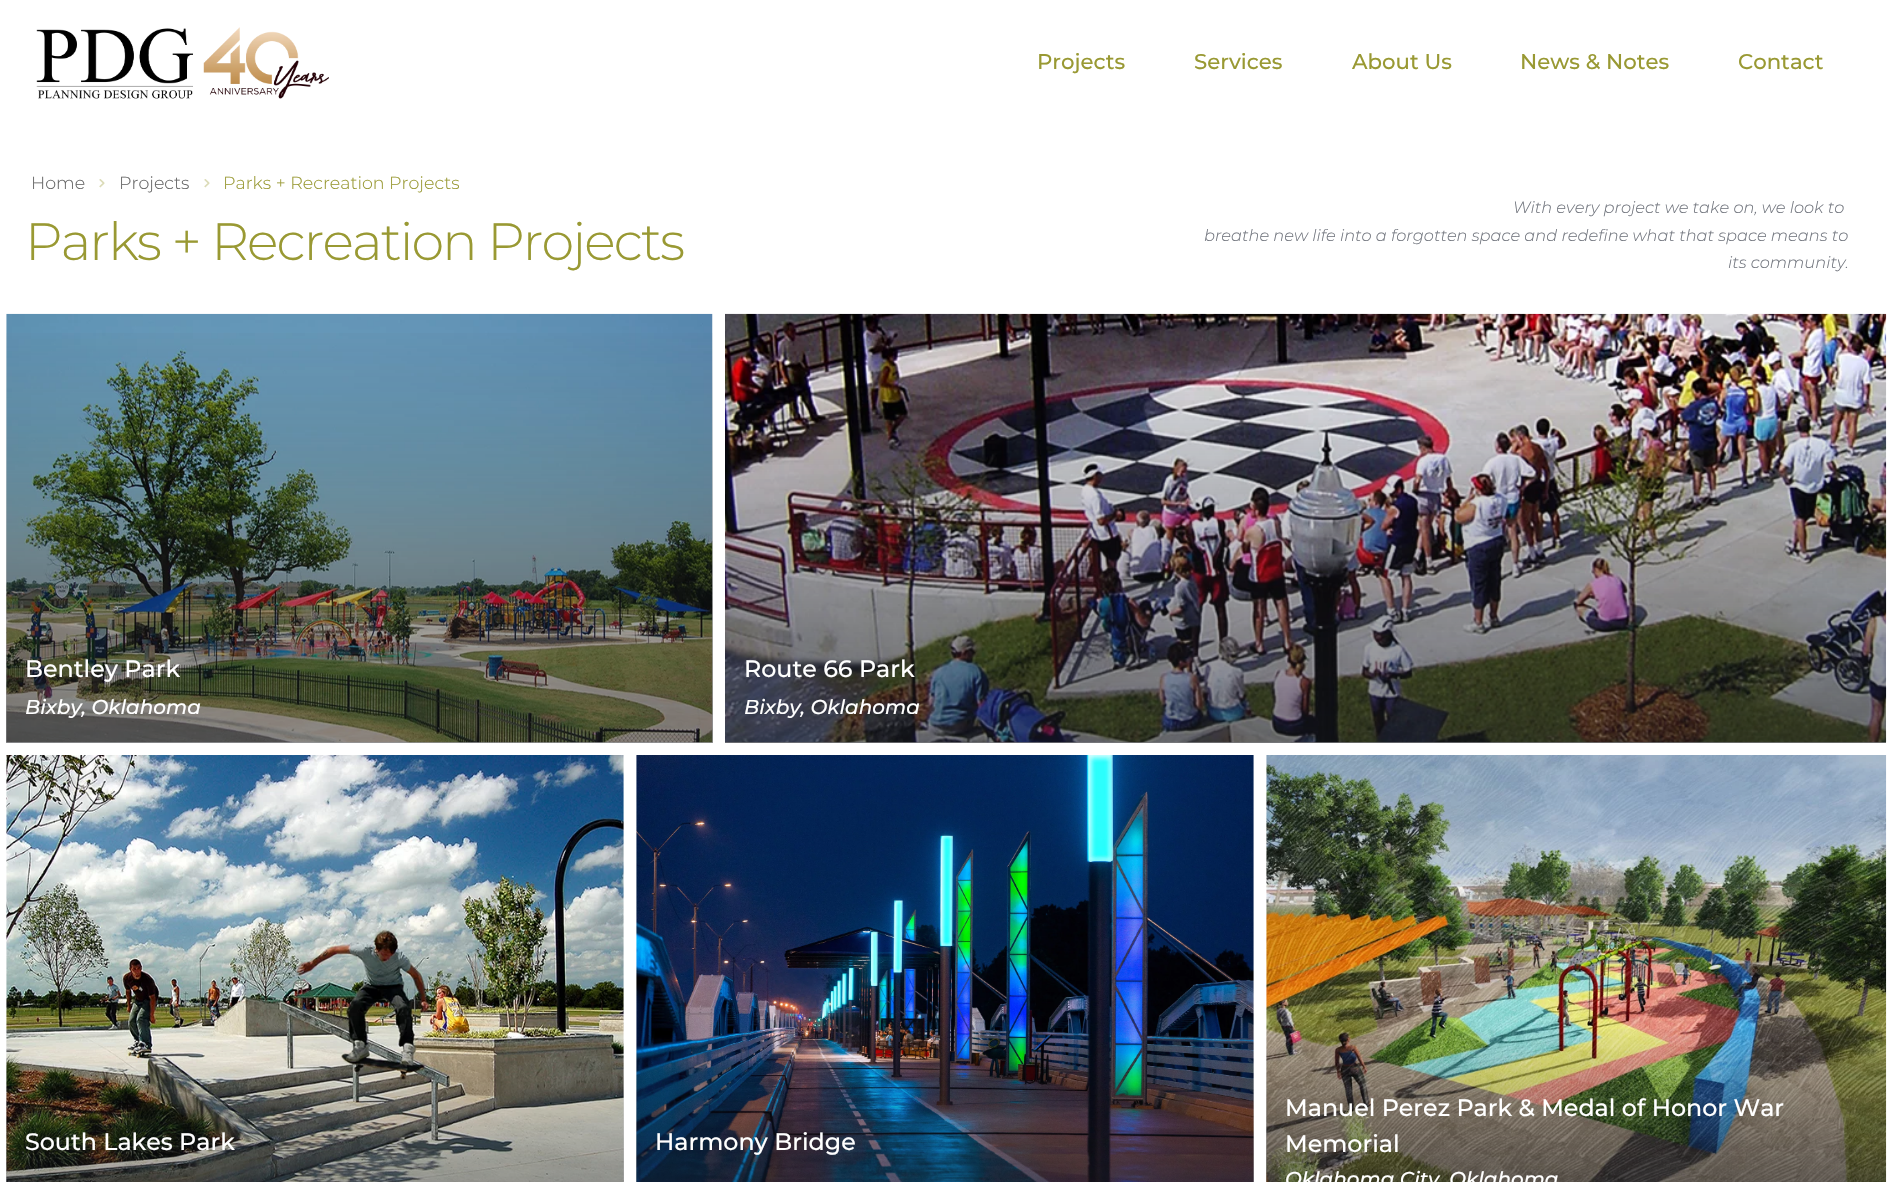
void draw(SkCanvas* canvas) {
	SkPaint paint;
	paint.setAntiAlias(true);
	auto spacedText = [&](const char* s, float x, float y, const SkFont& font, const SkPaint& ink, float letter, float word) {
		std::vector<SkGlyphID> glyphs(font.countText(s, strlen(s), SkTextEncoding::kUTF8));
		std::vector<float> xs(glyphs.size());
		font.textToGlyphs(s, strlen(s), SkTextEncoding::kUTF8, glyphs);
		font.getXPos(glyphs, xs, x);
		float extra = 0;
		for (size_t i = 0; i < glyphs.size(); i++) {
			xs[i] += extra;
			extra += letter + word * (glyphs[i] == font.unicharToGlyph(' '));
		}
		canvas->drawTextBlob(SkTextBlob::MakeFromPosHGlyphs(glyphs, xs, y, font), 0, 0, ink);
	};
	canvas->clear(0xffffffff);
	canvas->drawImageRect(SkImages::DeferredFromEncodedData(SkData::MakeFromFileName("img1.png")), SkRect::MakeXYWH(36, 27, 293, 72), SkSamplingOptions());
	SkFont f1(fontMgr->matchFamilyStyle("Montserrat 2", SkFontStyle(100, SkFontStyle::kNormal_Width, SkFontStyle::kUpright_Slant)), 21.25);
	f1.setSubpixel(true);
	paint.setColor(0xff999933);
	canvas->drawString("Projects", 1037, 69, f1, paint);
	canvas->drawString("Services", 1194, 69, f1, paint);
	canvas->drawString("About Us", 1352, 69, f1, paint);
	canvas->drawString("News & Notes", 1520, 69, f1, paint);
	canvas->drawString("Contact", 1738, 69, f1, paint);
	SkFont f2(fontMgr->matchFamilyStyle("Montserrat", SkFontStyle(100, SkFontStyle::kNormal_Width, SkFontStyle::kUpright_Slant)), 17.5);
	f2.setSubpixel(true);
	paint.setColor(0xff666666);
	canvas->drawString("Home", 31, 189, f2, paint);
	canvas->drawImageRect(SkImages::DeferredFromEncodedData(SkData::MakeFromFileName("img2.png")), SkRect::MakeXYWH(99, 179, 6, 9), SkSamplingOptions());
	canvas->drawString("Projects", 119, 189, f2, paint);
	canvas->drawImageRect(SkImages::DeferredFromEncodedData(SkData::MakeFromFileName("img2.png")), SkRect::MakeXYWH(204, 179, 6, 9), SkSamplingOptions());
	paint.setColor(0xff999933);
	canvas->drawString("Parks + Recreation Projects", 223, 189, f2, paint);
	SkFont f3(fontMgr->matchFamilyStyle("Montserrat", SkFontStyle(100, SkFontStyle::kNormal_Width, SkFontStyle::kUpright_Slant)), 52.5);
	f3.setSubpixel(true);
	spacedText("Parks + Recreation Projects", 25, 260, f3, paint, -1.9, 0);
	SkFont f4(fontMgr->matchFamilyStyle("Montserrat", SkFontStyle(100, SkFontStyle::kNormal_Width, SkFontStyle::kItalic_Slant)), 16.25);
	f4.setSubpixel(true);
	paint.setColor(0xff73777f);
	canvas->drawString("With every project we take on, we look to", 1513, 213, f4, paint);
	canvas->drawString("breathe new life into a forgotten space and redefine what that space means to", 1204, 241, f4, paint);
	canvas->drawString("its community.", 1728, 268, f4, paint);
	canvas->drawImageRect(SkImages::DeferredFromEncodedData(SkData::MakeFromFileName("img3.png")), SkRect::MakeXYWH(6, 313, 707, 430), SkSamplingOptions());
	{
		const SkColor colors[] = {0x75191b21, 0x00191b21};
		const float stops[] = {0.08, 1};
		const SkPoint ends[] = {{359, 743}, {359, 314}};
		paint.setShader(SkGradientShader::MakeLinear(ends, colors, stops, 2, SkTileMode::kClamp));
		paint.setAlpha(255);
	}
	canvas->drawRect(SkRect::MakeXYWH(6, 333, 707, 410), paint);
	SkFont f5(fontMgr->matchFamilyStyle("Montserrat 2", SkFontStyle(100, SkFontStyle::kNormal_Width, SkFontStyle::kUpright_Slant)), 23.75);
	f5.setSubpixel(true);
	paint.setShader(nullptr);
	paint.setColor(0xffffffff);
	canvas->drawString("Bentley Park", 25, 677, f5, paint);
	SkFont f6(fontMgr->matchFamilyStyle("Montserrat 2", SkFontStyle(100, SkFontStyle::kNormal_Width, SkFontStyle::kItalic_Slant)), 20);
	f6.setSubpixel(true);
	canvas->drawString("Bixby, Oklahoma", 25, 714, f6, paint);
	canvas->drawImageRect(SkImages::DeferredFromEncodedData(SkData::MakeFromFileName("img4.png")), SkRect::MakeXYWH(725, 313, 1162, 430), SkSamplingOptions());
	{
		const SkColor colors[] = {0x00191b21, 0x94191b21};
		const float stops[] = {0.12, 1};
		const SkPoint ends[] = {{1306, 314}, {1306, 743}};
		paint.setShader(SkGradientShader::MakeLinear(ends, colors, stops, 2, SkTileMode::kClamp));
		paint.setAlpha(255);
	}
	canvas->drawRect(SkRect::MakeXYWH(725, 380, 1161, 363), paint);
	paint.setShader(nullptr);
	paint.setColor(0xffffffff);
	canvas->drawString("Route 66 Park", 744, 677, f5, paint);
	canvas->drawString("Bixby, Oklahoma", 744, 714, f6, paint);
	canvas->drawImageRect(SkImages::DeferredFromEncodedData(SkData::MakeFromFileName("img5.png")), SkRect::MakeXYWH(6, 755, 618, 427), SkSamplingOptions());
	{
		const SkColor colors[] = {0x00191b21, 0x78191b21};
		const float stops[] = {0.6, 1};
		const SkPoint ends[] = {{315, 755}, {315, 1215}};
		paint.setShader(SkGradientShader::MakeLinear(ends, colors, stops, 2, SkTileMode::kClamp));
		paint.setAlpha(255);
	}
	canvas->drawRect(SkRect::MakeXYWH(6, 1039, 618, 143), paint);
	paint.setShader(nullptr);
	paint.setColor(0xffffffff);
	canvas->drawString("South Lakes Park", 25, 1150, f5, paint);
	canvas->drawImageRect(SkImages::DeferredFromEncodedData(SkData::MakeFromFileName("img6.png")), SkRect::MakeXYWH(636, 755, 618, 427), SkSamplingOptions());
	{
		const SkColor colors[] = {0x00191b21, 0x78191b21};
		const float stops[] = {0.6, 1};
		const SkPoint ends[] = {{945, 755}, {945, 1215}};
		paint.setShader(SkGradientShader::MakeLinear(ends, colors, stops, 2, SkTileMode::kClamp));
		paint.setAlpha(255);
	}
	canvas->drawRect(SkRect::MakeXYWH(636, 1039, 618, 143), paint);
	paint.setShader(nullptr);
	paint.setColor(0xffffffff);
	canvas->drawString("Harmony Bridge", 655, 1150, f5, paint);
	canvas->drawImageRect(SkImages::DeferredFromEncodedData(SkData::MakeFromFileName("img7.png")), SkRect::MakeXYWH(1266, 755, 621, 427), SkSamplingOptions());
	{
		const SkColor colors[] = {0x00191b21, 0x94191b21};
		const float stops[] = {0.58, 1};
		const SkPoint ends[] = {{1576, 755}, {1576, 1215}};
		paint.setShader(SkGradientShader::MakeLinear(ends, colors, stops, 2, SkTileMode::kClamp));
		paint.setAlpha(255);
	}
	canvas->drawRect(SkRect::MakeXYWH(1266, 1029, 620, 153), paint);
	paint.setShader(nullptr);
	paint.setColor(0xffffffff);
	canvas->drawString("Manuel Perez Park & Medal of Honor War", 1285, 1116, f5, paint);
	canvas->drawString("Memorial", 1285, 1152, f5, paint);
	canvas->drawString("Oklahoma City, Oklahoma", 1285, 1186, f6, paint);
}
